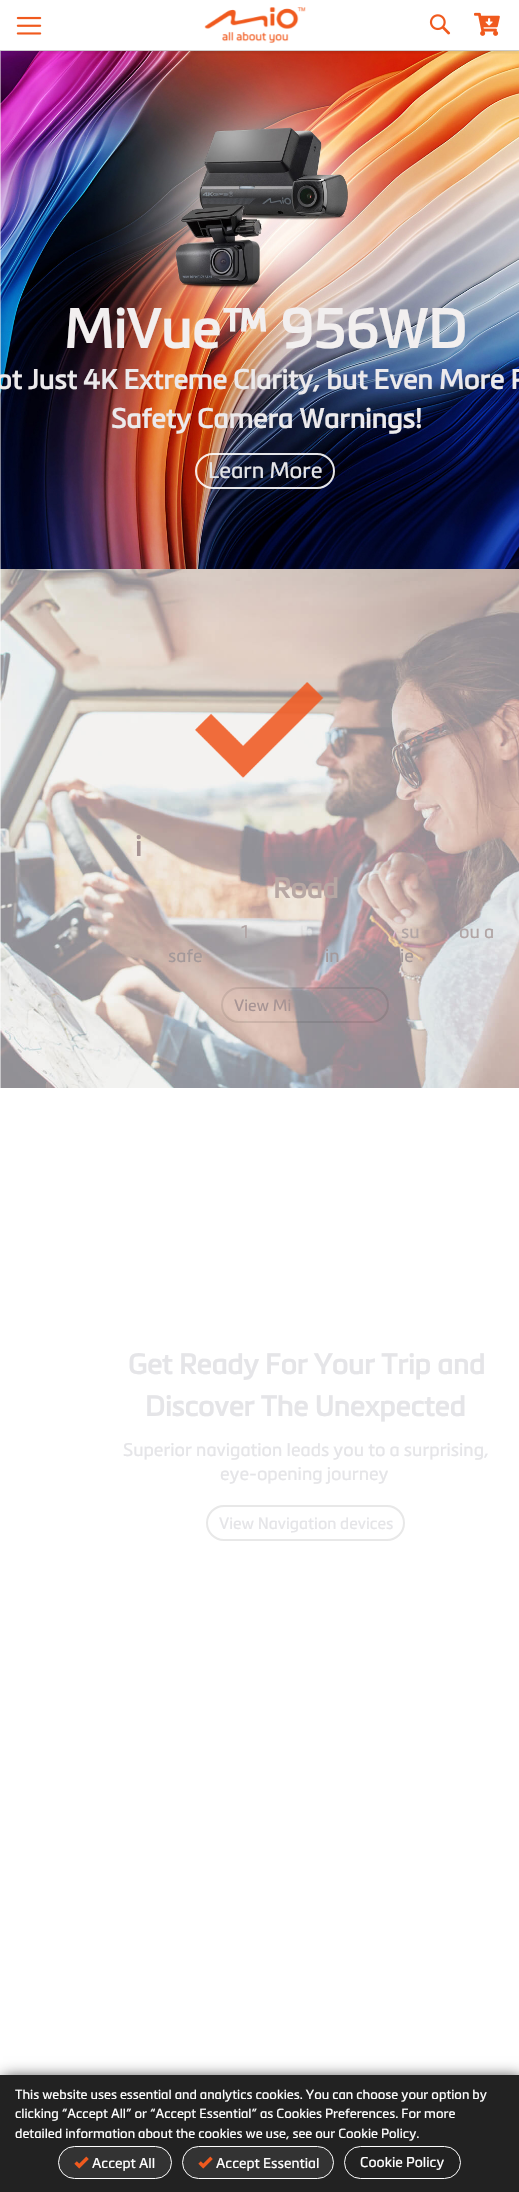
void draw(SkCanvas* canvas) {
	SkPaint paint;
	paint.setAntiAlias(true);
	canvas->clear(0xffffffff);
	canvas->drawImageRect(SkImages::DeferredFromEncodedData(SkData::MakeFromFileName("img5.png")), SkRect::MakeXYWH(0, 51, 519, 518), SkSamplingOptions());
	canvas->save();
	canvas->clipRect(SkRect::MakeXYWH(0, 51, 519, 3));
	paint.setColor(0x33000000);
	paint.setMaskFilter(SkMaskFilter::MakeBlur(kNormal_SkBlurStyle, 2.5));
	canvas->drawRect(SkRect::MakeXYWH(0, 1, 519, 50), paint);
	paint.setMaskFilter(nullptr);
	canvas->restore();
	canvas->drawImageRect(SkImages::DeferredFromEncodedData(SkData::MakeFromFileName("img1.png")), SkRect::MakeXYWH(204, 7, 102, 36), SkSamplingOptions());
	canvas->drawImageRect(SkImages::DeferredFromEncodedData(SkData::MakeFromFileName("img2.png")), SkRect::MakeXYWH(474, 12, 26, 24), SkSamplingOptions());
	canvas->drawImageRect(SkImages::DeferredFromEncodedData(SkData::MakeFromFileName("img3.png")), SkRect::MakeXYWH(429, 14, 22, 21), SkSamplingOptions());
	paint.setColor(0xffcccccc);
	canvas->drawRect(SkRect::MakeXYWH(0, 50, 519, 1), paint);
	canvas->drawImageRect(SkImages::DeferredFromEncodedData(SkData::MakeFromFileName("img4.png")), SkRect::MakeXYWH(16, 16, 26, 19), SkSamplingOptions());
	SkFont f1(fontMgr->matchFamilyStyle("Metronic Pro", SkFontStyle::Bold()), 54);
	f1.setSubpixel(true);
	paint.setColor(0xfff2efef);
	canvas->drawString("MiVue™ 956WD", 64, 348, f1, paint);
	SkFont f2(fontMgr->matchFamilyStyle("Metronic Pro", SkFontStyle::Bold()), 27);
	f2.setSubpixel(true);
	paint.setColor(0xffeceaec);
	canvas->drawString("ot Just 4K Extreme Clarity, but Even More P", -4, 389, f2, paint);
	canvas->drawString("Safety Camera Warnings!", 111, 428, f2, paint);
	paint.setStroke(true);
	paint.setStrokeWidth(2);
	paint.setColor(0xe3ffffff);
	canvas->drawRoundRect(SkRect::MakeXYWH(196, 454, 138, 34), 17, 17, paint);
	SkFont f3(fontMgr->matchFamilyStyle("Metronic Pro", SkFontStyle::Normal()), 22);
	f3.setSubpixel(true);
	paint.setStroke(false);
	paint.setColor(0xffe5e5e8);
	canvas->drawString("Learn More", 208, 478, f3, paint);
	canvas->drawImageRect(SkImages::DeferredFromEncodedData(SkData::MakeFromFileName("img6.png")), SkRect::MakeXYWH(0, 569, 519, 519), SkSamplingOptions());
	canvas->drawImageRect(SkImages::DeferredFromEncodedData(SkData::MakeFromFileName("img7.png")), SkRect::MakeXYWH(195, 682, 129, 96), SkSamplingOptions());
	SkFont f4(fontMgr->matchFamilyStyle("Metronic Pro", SkFontStyle::Bold()), 28);
	f4.setSubpixel(true);
	paint.setColor(0xffa79494);
	canvas->drawString("i", 135, 856, f4, paint);
	paint.setColor(0xffb8a8a4);
	canvas->drawString("Road", 273, 898, f4, paint);
	SkFont f5(fontMgr->matchFamilyStyle("Metronic Pro", SkFontStyle::Normal()), 18);
	f5.setSubpixel(true);
	paint.setColor(0xffb1a5a5);
	canvas->drawString("1", 241, 938, f5, paint);
	canvas->drawString("su", 401, 938, f5, paint);
	canvas->drawString("ou a", 459, 938, f5, paint);
	paint.setColor(0xffa4999a);
	canvas->drawString("safe", 168, 962, f5, paint);
	canvas->drawString("in", 325, 962, f5, paint);
	canvas->drawString("ie", 400, 962, f5, paint);
	paint.setStroke(true);
	paint.setColor(0x17000000);
	canvas->drawRoundRect(SkRect::MakeXYWH(222, 988, 166, 34), 17, 17, paint);
	SkFont f6(fontMgr->matchFamilyStyle("Metronic Pro", SkFontStyle::Normal()), 16);
	f6.setSubpixel(true);
	paint.setStroke(false);
	paint.setColor(0xffa79494);
	canvas->drawString("View Mi", 234, 1011, f6, paint);
	paint.setColor(0xffe5e5e8);
	canvas->drawString("Get Ready For Your Trip and", 128, 1374, f4, paint);
	canvas->drawString("Discover The Unexpected", 145, 1416, f4, paint);
	canvas->drawString("Superior navigation leads you to a surprising,", 123, 1456, f5, paint);
	canvas->drawString("eye-opening journey", 220, 1480, f5, paint);
	paint.setStroke(true);
	paint.setColor(0xffe8e8e8);
	canvas->drawRoundRect(SkRect::MakeXYWH(207, 1506, 197, 34), 17, 17, paint);
	paint.setStroke(false);
	paint.setColor(0xffe5e5e8);
	canvas->drawString("View Navigation devices", 219, 1529, f6, paint);
	paint.setColor(0xff222222);
	paint.setMaskFilter(SkMaskFilter::MakeBlur(kNormal_SkBlurStyle, 7.5));
	canvas->drawRect(SkRect::MakeXYWH(3, 2078, 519, 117), paint);
	paint.setMaskFilter(nullptr);
	canvas->drawRect(SkRect::MakeXYWH(0, 2075, 519, 117), paint);
	SkFont f7(fontMgr->matchFamilyStyle("Metronic Pro", SkFontStyle::Normal()), 13);
	f7.setSubpixel(true);
	paint.setColor(0xffffffff);
	canvas->drawString("This website uses essential and analytics cookies. You can choose your option by", 15, 2099, f7, paint);
	canvas->drawString("clicking “Accept All” or “Accept Essential” as Cookies Preferences. For more", 15, 2118, f7, paint);
	canvas->drawString("detailed information about the cookies we use, see our Cookie Policy.", 15, 2138, f7, paint);
	paint.setColor(0xff333333);
	canvas->drawRoundRect(SkRect::MakeXYWH(58.5, 2146.5, 113, 32), 16, 16, paint);
	paint.setStroke(true);
	paint.setStrokeWidth(1);
	paint.setColor(0xffffffff);
	canvas->drawRoundRect(SkRect::MakeXYWH(58.5, 2146.5, 113, 32), 16, 16, paint);
	canvas->drawImageRect(SkImages::DeferredFromEncodedData(SkData::MakeFromFileName("img8.png")), SkRect::MakeXYWH(74, 2156, 15, 13), SkSamplingOptions());
	SkFont f8(fontMgr->matchFamilyStyle("Metronic Pro", SkFontStyle::Normal()), 14);
	f8.setSubpixel(true);
	paint.setStroke(false);
	canvas->drawString("Accept All", 92, 2168, f8, paint);
	paint.setColor(0xff333333);
	canvas->drawRoundRect(SkRect::MakeXYWH(182.5, 2146.5, 151, 32), 16, 16, paint);
	paint.setStroke(true);
	paint.setColor(0xffffffff);
	canvas->drawRoundRect(SkRect::MakeXYWH(182.5, 2146.5, 151, 32), 16, 16, paint);
	canvas->drawImageRect(SkImages::DeferredFromEncodedData(SkData::MakeFromFileName("img8.png")), SkRect::MakeXYWH(198, 2156, 15, 13), SkSamplingOptions());
	paint.setStroke(false);
	canvas->drawString("Accept Essential", 216, 2168, f8, paint);
	paint.setStroke(true);
	canvas->drawRoundRect(SkRect::MakeXYWH(344.5, 2146.5, 116, 32), 16, 16, paint);
	paint.setStroke(false);
	canvas->drawString("Cookie Policy", 360, 2167, f8, paint);
}
